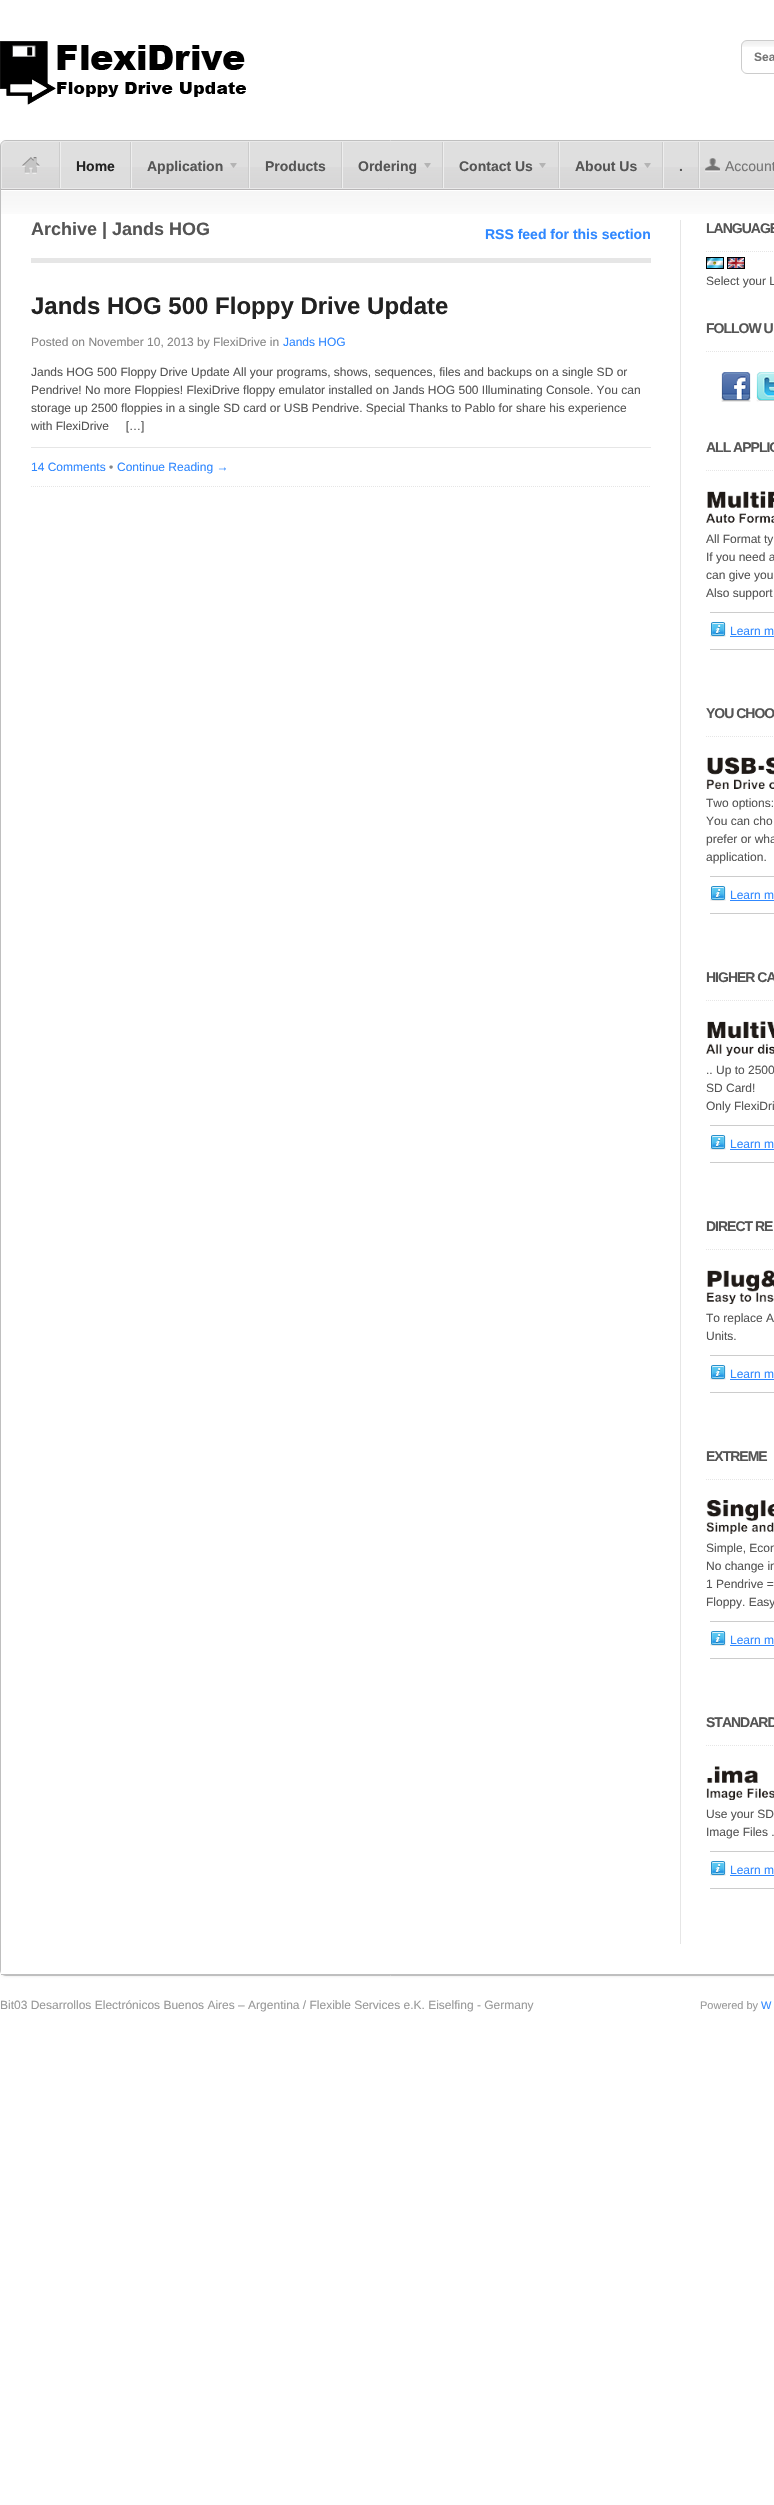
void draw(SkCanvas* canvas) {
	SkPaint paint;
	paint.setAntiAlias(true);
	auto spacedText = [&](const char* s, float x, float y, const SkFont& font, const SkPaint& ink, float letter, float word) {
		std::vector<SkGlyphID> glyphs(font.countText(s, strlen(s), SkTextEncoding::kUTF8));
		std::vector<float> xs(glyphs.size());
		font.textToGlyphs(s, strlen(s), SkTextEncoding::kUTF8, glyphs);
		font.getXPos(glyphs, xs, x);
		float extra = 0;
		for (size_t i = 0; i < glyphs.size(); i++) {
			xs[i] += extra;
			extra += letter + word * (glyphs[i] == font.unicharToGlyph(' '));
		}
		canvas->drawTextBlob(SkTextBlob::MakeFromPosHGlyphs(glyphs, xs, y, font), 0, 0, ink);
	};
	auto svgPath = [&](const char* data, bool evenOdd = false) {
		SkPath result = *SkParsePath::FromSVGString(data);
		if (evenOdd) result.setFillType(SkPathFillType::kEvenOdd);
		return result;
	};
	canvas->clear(0xffffffff);
	canvas->drawImageRect(SkImages::DeferredFromEncodedData(SkData::MakeFromFileName("img1.png")), SkRect::MakeXYWH(0, 41, 246, 64), SkSamplingOptions());
	canvas->drawImageRect(SkImages::DeferredFromEncodedData(SkData::MakeFromFileName("img2.png")), SkRect::MakeXYWH(741, 41, 33, 6), SkSamplingOptions());
	paint.setStroke(true);
	paint.setStrokeWidth(1);
	paint.setColor(0xffcccccc);
	canvas->drawRoundRect(SkRect::MakeXYWH(741.5, 40.5, 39, 33), 5.5, 5.5, paint);
	SkFont f1(fontMgr->matchFamilyStyle("Liberation Sans", SkFontStyle::Bold()), 12);
	f1.setSubpixel(true);
	paint.setStroke(false);
	paint.setColor(0xff757575);
	canvas->drawString("Sea", 754, 61, f1, paint);
	paint.setColor(0x0d000000);
	paint.setMaskFilter(SkMaskFilter::MakeBlur(kNormal_SkBlurStyle, 1));
	canvas->drawRoundRect(SkRect::MakeXYWH(0, 141, 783, 1836), 6, 6, paint);
	paint.setMaskFilter(nullptr);
	paint.setStroke(true);
	paint.setColor(0xffbfbfbf);
	canvas->drawRoundRect(SkRect::MakeXYWH(0.5, 140.5, 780, 1835), 5.5, 5.5, paint);
	paint.setStroke(false);
	paint.setColor(0xffdfdfdf);
	canvas->drawPath(svgPath("M7 141H774C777.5 141 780 143.5 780 147V189H1V147C1 143.5 3.5 141 7 141Z"), paint);
	canvas->drawImageRect(SkImages::DeferredFromEncodedData(SkData::MakeFromFileName("img3.png")), SkRect::MakeXYWH(2, 167, 772, 21), SkSamplingOptions());
	paint.setStroke(true);
	paint.setColor(0xffe9e9e9);
	canvas->drawPath(svgPath("M7 141.5H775C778 141.5 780.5 144 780.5 147V188.5H1.5V147C1.5 144 4 141.5 7 141.5Z"), paint);
	canvas->drawImageRect(SkImages::DeferredFromEncodedData(SkData::MakeFromFileName("img4.png")), SkRect::MakeXYWH(22, 157, 18, 17), SkSamplingOptions());
	paint.setStroke(false);
	paint.setColor(0xffeeeeee);
	canvas->drawRect(SkRect::MakeXYWH(699, 142, 1, 46), paint);
	paint.setColor(0xffcccccc);
	canvas->drawRect(SkRect::MakeXYWH(59, 142, 1, 46), paint);
	paint.setColor(0xffdddddd);
	canvas->drawRect(SkRect::MakeXYWH(61, 167, 69, 21), paint);
	paint.setColor(0xffcccccc);
	canvas->drawRect(SkRect::MakeXYWH(130, 142, 1, 46), paint);
	paint.setColor(0xffeeeeee);
	canvas->drawRect(SkRect::MakeXYWH(60, 142, 1, 46), paint);
	SkFont f2(fontMgr->matchFamilyStyle("Liberation Sans", SkFontStyle::Bold()), 14);
	f2.setSubpixel(true);
	paint.setColor(0xff222222);
	canvas->drawString("Home", 76, 171, f2, paint);
	paint.setColor(0xffcccccc);
	canvas->drawRect(SkRect::MakeXYWH(248, 142, 1, 46), paint);
	paint.setColor(0xffeeeeee);
	canvas->drawRect(SkRect::MakeXYWH(131, 142, 1, 46), paint);
	paint.setColor(0xff555555);
	canvas->drawString("Application", 147, 171, f2, paint);
	canvas->drawImageRect(SkImages::DeferredFromEncodedData(SkData::MakeFromFileName("img5.png")), SkRect::MakeXYWH(230, 163, 7, 5), SkSamplingOptions());
	paint.setColor(0xffcccccc);
	canvas->drawRect(SkRect::MakeXYWH(341, 142, 1, 46), paint);
	paint.setColor(0xffeeeeee);
	canvas->drawRect(SkRect::MakeXYWH(249, 142, 1, 46), paint);
	paint.setColor(0xff555555);
	canvas->drawString("Products", 265, 171, f2, paint);
	paint.setColor(0xffcccccc);
	canvas->drawRect(SkRect::MakeXYWH(442, 142, 1, 46), paint);
	paint.setColor(0xffeeeeee);
	canvas->drawRect(SkRect::MakeXYWH(342, 142, 1, 46), paint);
	paint.setColor(0xff555555);
	canvas->drawString("Ordering", 358, 171, f2, paint);
	canvas->drawImageRect(SkImages::DeferredFromEncodedData(SkData::MakeFromFileName("img5.png")), SkRect::MakeXYWH(424, 163, 7, 5), SkSamplingOptions());
	paint.setColor(0xffcccccc);
	canvas->drawRect(SkRect::MakeXYWH(558, 142, 1, 46), paint);
	paint.setColor(0xffeeeeee);
	canvas->drawRect(SkRect::MakeXYWH(443, 142, 1, 46), paint);
	paint.setColor(0xff555555);
	canvas->drawString("Contact Us", 459, 171, f2, paint);
	canvas->drawImageRect(SkImages::DeferredFromEncodedData(SkData::MakeFromFileName("img5.png")), SkRect::MakeXYWH(539, 163, 7, 5), SkSamplingOptions());
	paint.setColor(0xffcccccc);
	canvas->drawRect(SkRect::MakeXYWH(662, 142, 1, 46), paint);
	paint.setColor(0xffeeeeee);
	canvas->drawRect(SkRect::MakeXYWH(559, 142, 1, 46), paint);
	paint.setColor(0xff555555);
	canvas->drawString("About Us", 575, 171, f2, paint);
	canvas->drawImageRect(SkImages::DeferredFromEncodedData(SkData::MakeFromFileName("img5.png")), SkRect::MakeXYWH(644, 163, 7, 5), SkSamplingOptions());
	paint.setColor(0xffcccccc);
	canvas->drawRect(SkRect::MakeXYWH(698, 142, 1, 46), paint);
	paint.setColor(0xffeeeeee);
	canvas->drawRect(SkRect::MakeXYWH(663, 142, 1, 46), paint);
	paint.setColor(0xff555555);
	canvas->drawString(".", 679, 171, f2, paint);
	canvas->drawImageRect(SkImages::DeferredFromEncodedData(SkData::MakeFromFileName("img6.png")), SkRect::MakeXYWH(705, 158, 15, 14), SkSamplingOptions());
	SkFont f3(fontMgr->matchFamilyStyle("Liberation Sans", SkFontStyle::Normal()), 14);
	f3.setSubpixel(true);
	paint.setColor(0xff757575);
	canvas->drawString("Account", 725, 171, f3, paint);
	paint.setColor(0xffffffff);
	canvas->drawRect(SkRect::MakeXYWH(1, 190, 773, 1784), paint);
	canvas->drawImageRect(SkImages::DeferredFromEncodedData(SkData::MakeFromFileName("img7.png")), SkRect::MakeXYWH(1, 191, 773, 23), SkSamplingOptions());
	paint.setColor(0xffb7b5b6);
	canvas->drawRect(SkRect::MakeXYWH(1, 189, 773, 1), paint);
	paint.setColor(0xffbfbfbf);
	canvas->drawRect(SkRect::MakeXYWH(1, 1974, 773, 1), paint);
	paint.setColor(0xffe6e6e6);
	canvas->drawRect(SkRect::MakeXYWH(31, 258, 620, 5), paint);
	SkFont f4(fontMgr->matchFamilyStyle("Liberation Sans", SkFontStyle::Bold()), 18);
	f4.setSubpixel(true);
	paint.setColor(0xff555555);
	canvas->drawString("Archive | Jands HOG", 31, 235, f4, paint);
	paint.setColor(0xff3088ff);
	canvas->drawString("RSS feed for this section", 485, 239, f2, paint);
	paint.setStroke(true);
	paint.setColor(0xffe6e6e6);
	paint.setPathEffect(SkDashPathEffect::Make({{1, 1}}, 0));
	canvas->drawPath(svgPath("M31 486.5H651"), paint);
	paint.setPathEffect(nullptr);
	SkFont f5(fontMgr->matchFamilyStyle("Liberation Sans", SkFontStyle::Bold()), 24);
	f5.setSubpixel(true);
	paint.setStroke(false);
	paint.setColor(0xff222222);
	canvas->drawString("Jands HOG 500 Floppy Drive Update", 31, 314, f5, paint);
	SkFont f6(fontMgr->matchFamilyStyle("Liberation Sans", SkFontStyle::Normal()), 12);
	f6.setSubpixel(true);
	paint.setColor(0xff868686);
	canvas->drawString("Posted on November 10, 2013 by FlexiDrive in", 31, 346, f6, paint);
	paint.setColor(0xff3088ff);
	canvas->drawString("Jands HOG", 283, 346, f6, paint);
	paint.setColor(0xff555555);
	canvas->drawString("Jands HOG 500 Floppy Drive Update All your programs, shows, sequences, files and backups on a single SD or", 31, 376, f6, paint);
	canvas->drawString("Pendrive! No more Floppies! FlexiDrive floppy emulator installed on Jands HOG 500 Illuminating Console. You can", 31, 394, f6, paint);
	canvas->drawString("storage up 2500 floppies in a single SD card or USB Pendrive. Special Thanks to Pablo for share his experience", 31, 412, f6, paint);
	canvas->drawString("with FlexiDrive     […]", 31, 430, f6, paint);
	paint.setColor(0xffe6e6e6);
	canvas->drawRect(SkRect::MakeXYWH(31, 447, 620, 1), paint);
	paint.setColor(0xff3088ff);
	canvas->drawString("14 Comments", 31, 471, f6, paint);
	paint.setColor(0xff868686);
	canvas->drawString("•", 109, 471, f6, paint);
	paint.setColor(0xff3088ff);
	canvas->drawString("Continue Reading →", 117, 471, f6, paint);
	paint.setColor(0xffe6e6e6);
	canvas->drawRect(SkRect::MakeXYWH(680, 220, 1, 1724), paint);
	paint.setStroke(true);
	paint.setPathEffect(SkDashPathEffect::Make({{1, 1}}, 0));
	canvas->drawPath(svgPath("M706 251.5H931"), paint);
	paint.setPathEffect(nullptr);
	paint.setStroke(false);
	paint.setColor(0xff555555);
	spacedText("LANGUAGE", 706, 233, f2, paint, -1, 0);
	canvas->drawString("Select your L", 706, 285, f6, paint);
	canvas->drawImageRect(SkImages::DeferredFromEncodedData(SkData::MakeFromFileName("img8.png")), SkRect::MakeXYWH(706, 257, 18, 12), SkSamplingOptions());
	canvas->drawImageRect(SkImages::DeferredFromEncodedData(SkData::MakeFromFileName("img9.png")), SkRect::MakeXYWH(727, 257, 18, 12), SkSamplingOptions());
	paint.setStroke(true);
	paint.setColor(0xffe6e6e6);
	paint.setPathEffect(SkDashPathEffect::Make({{1, 1}}, 0));
	canvas->drawPath(svgPath("M706 351.5H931"), paint);
	paint.setPathEffect(nullptr);
	paint.setStroke(false);
	paint.setColor(0xff555555);
	spacedText("FOLLOW U", 706, 333, f2, paint, -1, 0);
	canvas->drawImageRect(SkImages::DeferredFromEncodedData(SkData::MakeFromFileName("img10.png")), SkRect::MakeXYWH(721, 372, 30, 30), SkSamplingOptions());
	canvas->drawImageRect(SkImages::DeferredFromEncodedData(SkData::MakeFromFileName("img11.png")), SkRect::MakeXYWH(756, 372, 18, 30), SkSamplingOptions());
	paint.setStroke(true);
	paint.setColor(0xffe6e6e6);
	paint.setPathEffect(SkDashPathEffect::Make({{1, 1}}, 0));
	canvas->drawPath(svgPath("M706 470.5H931"), paint);
	paint.setPathEffect(nullptr);
	paint.setStroke(false);
	paint.setColor(0xff555555);
	spacedText("ALL APPLIC", 706, 452, f2, paint, -1, 0);
	canvas->drawImageRect(SkImages::DeferredFromEncodedData(SkData::MakeFromFileName("img12.png")), SkRect::MakeXYWH(706, 491, 68, 32), SkSamplingOptions());
	canvas->drawString("All Format ty", 706, 543, f6, paint);
	canvas->drawString("If you need a", 706, 561, f6, paint);
	canvas->drawString("can give you", 706, 579, f6, paint);
	canvas->drawString("Also support", 706, 597, f6, paint);
	canvas->drawImageRect(SkImages::DeferredFromEncodedData(SkData::MakeFromFileName("img13.png")), SkRect::MakeXYWH(710, 622, 16, 15), SkSamplingOptions());
	paint.setColor(0xffcccccc);
	canvas->drawRect(SkRect::MakeXYWH(710, 612, 64, 1), paint);
	canvas->drawRect(SkRect::MakeXYWH(710, 649, 64, 1), paint);
	paint.setColor(0xff3088ff);
	canvas->drawString("Learn m", 730, 635, f6, paint);
	canvas->drawRect(SkRect::MakeXYWH(730, 636, 44, 1), paint);
	paint.setStroke(true);
	paint.setColor(0xffe6e6e6);
	paint.setPathEffect(SkDashPathEffect::Make({{1, 1}}, 0));
	canvas->drawPath(svgPath("M706 736.5H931"), paint);
	paint.setPathEffect(nullptr);
	paint.setStroke(false);
	paint.setColor(0xff555555);
	spacedText("YOU CHOO", 706, 718, f2, paint, -1, 0);
	canvas->drawImageRect(SkImages::DeferredFromEncodedData(SkData::MakeFromFileName("img14.png")), SkRect::MakeXYWH(706, 757, 68, 32), SkSamplingOptions());
	canvas->drawString("Two options:", 706, 807, f6, paint);
	canvas->drawString("You can cho", 706, 825, f6, paint);
	canvas->drawString("prefer or wha", 706, 843, f6, paint);
	canvas->drawString("application.", 706, 861, f6, paint);
	canvas->drawImageRect(SkImages::DeferredFromEncodedData(SkData::MakeFromFileName("img13.png")), SkRect::MakeXYWH(710, 886, 16, 15), SkSamplingOptions());
	paint.setColor(0xffcccccc);
	canvas->drawRect(SkRect::MakeXYWH(710, 876, 64, 1), paint);
	canvas->drawRect(SkRect::MakeXYWH(710, 913, 64, 1), paint);
	paint.setColor(0xff3088ff);
	canvas->drawString("Learn m", 730, 899, f6, paint);
	canvas->drawRect(SkRect::MakeXYWH(730, 900, 44, 1), paint);
	paint.setStroke(true);
	paint.setColor(0xffe6e6e6);
	paint.setPathEffect(SkDashPathEffect::Make({{1, 1}}, 0));
	canvas->drawPath(svgPath("M706 1000.5H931"), paint);
	paint.setPathEffect(nullptr);
	paint.setStroke(false);
	paint.setColor(0xff555555);
	spacedText("HIGHER CA", 706, 982, f2, paint, -1, 0);
	canvas->drawImageRect(SkImages::DeferredFromEncodedData(SkData::MakeFromFileName("img15.png")), SkRect::MakeXYWH(706, 1021, 68, 35), SkSamplingOptions());
	canvas->drawString(".. Up to 2500", 706, 1074, f6, paint);
	canvas->drawString("SD Card!", 706, 1092, f6, paint);
	canvas->drawString("Only FlexiDri", 706, 1110, f6, paint);
	canvas->drawImageRect(SkImages::DeferredFromEncodedData(SkData::MakeFromFileName("img13.png")), SkRect::MakeXYWH(710, 1135, 16, 15), SkSamplingOptions());
	paint.setColor(0xffcccccc);
	canvas->drawRect(SkRect::MakeXYWH(710, 1125, 64, 1), paint);
	canvas->drawRect(SkRect::MakeXYWH(710, 1162, 64, 1), paint);
	paint.setColor(0xff3088ff);
	canvas->drawString("Learn m", 730, 1148, f6, paint);
	canvas->drawRect(SkRect::MakeXYWH(730, 1149, 44, 1), paint);
	paint.setStroke(true);
	paint.setColor(0xffe6e6e6);
	paint.setPathEffect(SkDashPathEffect::Make({{1, 1}}, 0));
	canvas->drawPath(svgPath("M706 1249.5H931"), paint);
	paint.setPathEffect(nullptr);
	paint.setStroke(false);
	paint.setColor(0xff555555);
	spacedText("DIRECT RE", 706, 1231, f2, paint, -1, 0);
	canvas->drawImageRect(SkImages::DeferredFromEncodedData(SkData::MakeFromFileName("img16.png")), SkRect::MakeXYWH(706, 1270, 68, 34), SkSamplingOptions());
	canvas->drawString("To replace A", 706, 1322, f6, paint);
	canvas->drawString("Units.", 706, 1340, f6, paint);
	canvas->drawImageRect(SkImages::DeferredFromEncodedData(SkData::MakeFromFileName("img13.png")), SkRect::MakeXYWH(710, 1365, 16, 15), SkSamplingOptions());
	paint.setColor(0xffcccccc);
	canvas->drawRect(SkRect::MakeXYWH(710, 1355, 64, 1), paint);
	canvas->drawRect(SkRect::MakeXYWH(710, 1392, 64, 1), paint);
	paint.setColor(0xff3088ff);
	canvas->drawString("Learn m", 730, 1378, f6, paint);
	canvas->drawRect(SkRect::MakeXYWH(730, 1379, 44, 1), paint);
	paint.setStroke(true);
	paint.setColor(0xffe6e6e6);
	paint.setPathEffect(SkDashPathEffect::Make({{1, 1}}, 0));
	canvas->drawPath(svgPath("M706 1479.5H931"), paint);
	paint.setPathEffect(nullptr);
	paint.setStroke(false);
	paint.setColor(0xff555555);
	spacedText("EXTREME", 706, 1461, f2, paint, -1, 0);
	canvas->drawImageRect(SkImages::DeferredFromEncodedData(SkData::MakeFromFileName("img17.png")), SkRect::MakeXYWH(706, 1500, 68, 34), SkSamplingOptions());
	canvas->drawString("Simple, Econ", 706, 1552, f6, paint);
	canvas->drawString("No change in", 706, 1570, f6, paint);
	canvas->drawString("1 Pendrive =", 706, 1588, f6, paint);
	canvas->drawString("Floppy. Easy", 706, 1606, f6, paint);
	canvas->drawImageRect(SkImages::DeferredFromEncodedData(SkData::MakeFromFileName("img13.png")), SkRect::MakeXYWH(710, 1631, 16, 15), SkSamplingOptions());
	paint.setColor(0xffcccccc);
	canvas->drawRect(SkRect::MakeXYWH(710, 1621, 64, 1), paint);
	canvas->drawRect(SkRect::MakeXYWH(710, 1658, 64, 1), paint);
	paint.setColor(0xff3088ff);
	canvas->drawString("Learn m", 730, 1644, f6, paint);
	canvas->drawRect(SkRect::MakeXYWH(730, 1645, 44, 1), paint);
	paint.setStroke(true);
	paint.setColor(0xffe6e6e6);
	paint.setPathEffect(SkDashPathEffect::Make({{1, 1}}, 0));
	canvas->drawPath(svgPath("M706 1745.5H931"), paint);
	paint.setPathEffect(nullptr);
	paint.setStroke(false);
	paint.setColor(0xff555555);
	spacedText("STANDARD", 706, 1727, f2, paint, -1, 0);
	canvas->drawImageRect(SkImages::DeferredFromEncodedData(SkData::MakeFromFileName("img18.png")), SkRect::MakeXYWH(706, 1766, 68, 34), SkSamplingOptions());
	canvas->drawString("Use your SD", 706, 1818, f6, paint);
	canvas->drawString("Image Files .", 706, 1836, f6, paint);
	canvas->drawImageRect(SkImages::DeferredFromEncodedData(SkData::MakeFromFileName("img13.png")), SkRect::MakeXYWH(710, 1861, 16, 15), SkSamplingOptions());
	paint.setColor(0xffcccccc);
	canvas->drawRect(SkRect::MakeXYWH(710, 1851, 64, 1), paint);
	canvas->drawRect(SkRect::MakeXYWH(710, 1888, 64, 1), paint);
	paint.setColor(0xff3088ff);
	canvas->drawString("Learn m", 730, 1874, f6, paint);
	canvas->drawRect(SkRect::MakeXYWH(730, 1875, 44, 1), paint);
	paint.setColor(0xff999999);
	canvas->drawString("Bit03 Desarrollos Electrónicos Buenos Aires – Argentina / Flexible Services e.K. Eiselfing - Germany", 0, 2009, f6, paint);
	SkFont f7(fontMgr->matchFamilyStyle("Liberation Sans", SkFontStyle::Normal()), 11);
	f7.setSubpixel(true);
	canvas->drawString("Powered by", 700, 2009, f7, paint);
	paint.setColor(0xff3088ff);
	canvas->drawString("W", 761, 2009, f7, paint);
}
